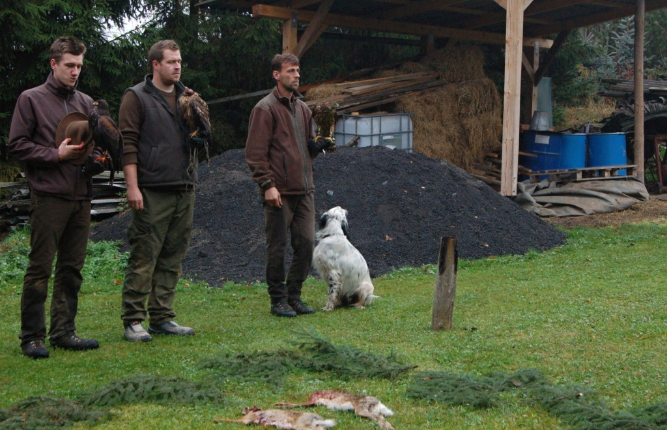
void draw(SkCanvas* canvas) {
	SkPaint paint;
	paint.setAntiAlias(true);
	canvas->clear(0xffffffff);
	canvas->drawImageRect(SkImages::DeferredFromEncodedData(SkData::MakeFromFileName("img1.png")), SkRect::MakeXYWH(0, 0, 667, 430), SkSamplingOptions());
}
